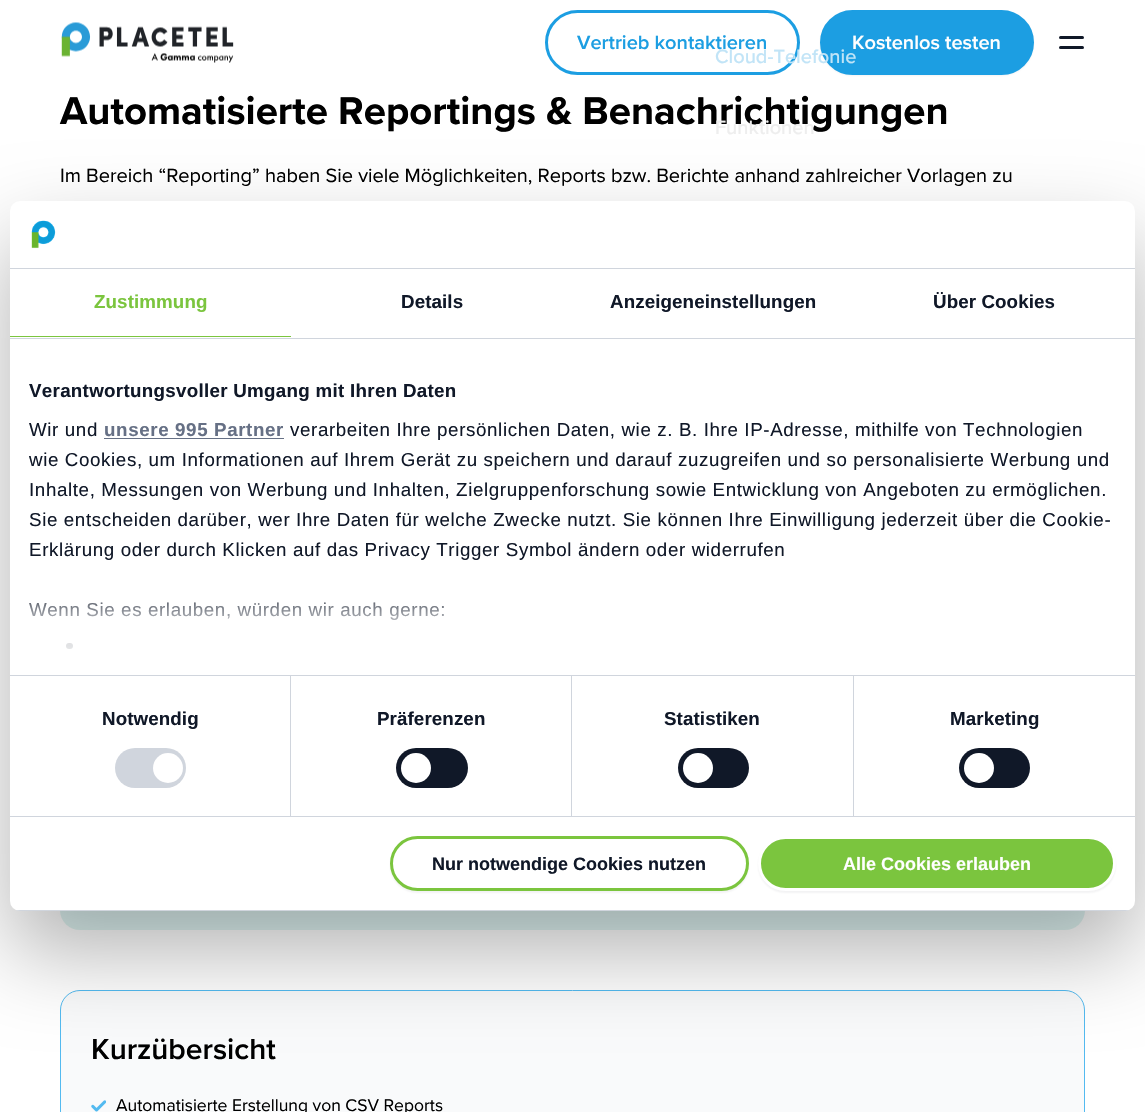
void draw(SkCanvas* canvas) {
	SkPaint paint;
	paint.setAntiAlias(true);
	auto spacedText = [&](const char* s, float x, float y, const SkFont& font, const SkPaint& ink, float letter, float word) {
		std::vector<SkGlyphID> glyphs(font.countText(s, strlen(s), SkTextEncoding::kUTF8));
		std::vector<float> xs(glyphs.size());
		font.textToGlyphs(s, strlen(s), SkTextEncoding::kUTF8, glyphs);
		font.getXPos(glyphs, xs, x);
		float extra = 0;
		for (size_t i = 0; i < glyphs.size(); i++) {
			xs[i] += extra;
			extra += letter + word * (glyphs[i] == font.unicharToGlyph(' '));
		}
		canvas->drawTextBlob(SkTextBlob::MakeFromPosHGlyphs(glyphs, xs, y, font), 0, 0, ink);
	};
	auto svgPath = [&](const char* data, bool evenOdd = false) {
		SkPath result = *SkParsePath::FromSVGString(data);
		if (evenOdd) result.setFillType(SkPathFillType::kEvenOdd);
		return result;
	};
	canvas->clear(0xffffffff);
	canvas->drawImageRect(SkImages::DeferredFromEncodedData(SkData::MakeFromFileName("img1.png")), SkRect::MakeXYWH(61, 22, 173, 41), SkSamplingOptions());
	paint.setStroke(true);
	paint.setStrokeWidth(3);
	paint.setColor(0xff1c9ee2);
	canvas->drawRoundRect(SkRect::MakeXYWH(546.5, 11.5, 252, 62), 31, 31, paint);
	SkFont f1(fontMgr->matchFamilyStyle("Proxima Nova", SkFontStyle(600, SkFontStyle::kNormal_Width, SkFontStyle::kUpright_Slant)), 20);
	f1.setSubpixel(true);
	paint.setStroke(false);
	canvas->drawString("Vertrieb kontaktieren", 577, 49, f1, paint);
	paint.setColor(0x0d101828);
	paint.setMaskFilter(SkMaskFilter::MakeBlur(kNormal_SkBlurStyle, 1));
	canvas->drawRoundRect(SkRect::MakeXYWH(820, 11, 214, 65), 32.5, 32.5, paint);
	paint.setMaskFilter(nullptr);
	paint.setColor(0xff1c9ee2);
	canvas->drawRoundRect(SkRect::MakeXYWH(821.5, 11.5, 211, 62), 31, 31, paint);
	paint.setStroke(true);
	canvas->drawRoundRect(SkRect::MakeXYWH(821.5, 11.5, 211, 62), 31, 31, paint);
	paint.setStroke(false);
	paint.setColor(0xffffffff);
	canvas->drawString("Kostenlos testen", 852, 49, f1, paint);
	paint.setColor(0xff101828);
	canvas->drawRoundRect(SkRect::MakeXYWH(1059, 36, 25, 3), 1.5, 1.5, paint);
	canvas->drawRoundRect(SkRect::MakeXYWH(1059, 46, 25, 3), 1.5, 1.5, paint);
	SkFont f2(fontMgr->matchFamilyStyle("Proxima Nova", SkFontStyle(500, SkFontStyle::kNormal_Width, SkFontStyle::kUpright_Slant)), 20);
	f2.setSubpixel(true);
	paint.setColor(0xffc1e4f7);
	canvas->drawString("Cloud-Telefonie", 715, 63, f2, paint);
	SkFont f3(fontMgr->matchFamilyStyle("Proxima Nova", SkFontStyle::Bold()), 40);
	f3.setSubpixel(true);
	paint.setColor(0xff000000);
	canvas->drawString("Automatisierte Reportings & Benachrichtigungen", 60, 124, f3, paint);
	paint.setColor(0xffeeeeee);
	canvas->drawString("Funktionen", 715, 134, f2, paint);
	SkFont f4(fontMgr->matchFamilyStyle("Proxima Nova", SkFontStyle::Normal()), 20);
	f4.setSubpixel(true);
	paint.setColor(0xff000000);
	canvas->drawString("Im Bereich “Reporting” haben Sie viele Möglichkeiten, Reports bzw. Berichte anhand zahlreicher Vorlagen zu", 60, 182, f4, paint);
	paint.setColor(0xffe0f5f3);
	canvas->drawRoundRect(SkRect::MakeXYWH(60, 285, 1025, 645), 20, 20, paint);
	paint.setColor(0xfff9fafb);
	canvas->drawRoundRect(SkRect::MakeXYWH(60.5, 990.5, 1024, 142), 19.5, 19.5, paint);
	paint.setStroke(true);
	paint.setStrokeWidth(1);
	paint.setColor(0xff53baf0);
	canvas->drawRoundRect(SkRect::MakeXYWH(60.5, 990.5, 1024, 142), 19.5, 19.5, paint);
	SkFont f5(fontMgr->matchFamilyStyle("Proxima Nova", SkFontStyle(600, SkFontStyle::kNormal_Width, SkFontStyle::kUpright_Slant)), 30);
	f5.setSubpixel(true);
	paint.setStroke(false);
	paint.setColor(0xff000000);
	canvas->drawString("Kurzübersicht", 91, 1059, f5, paint);
	canvas->drawImageRect(SkImages::DeferredFromEncodedData(SkData::MakeFromFileName("img2.png")), SkRect::MakeXYWH(91, 1100, 15, 12), SkSamplingOptions());
	SkFont f6(fontMgr->matchFamilyStyle("Proxima Nova", SkFontStyle::Normal()), 17.5);
	f6.setSubpixel(true);
	canvas->drawString("Automatisierte Erstellung von CSV Reports", 116, 1111, f6, paint);
	paint.setColor(0x4d000000);
	paint.setMaskFilter(SkMaskFilter::MakeBlur(kNormal_SkBlurStyle, 42.5));
	canvas->drawRoundRect(SkRect::MakeXYWH(10, 241, 1125, 710), 10, 10, paint);
	paint.setMaskFilter(nullptr);
	paint.setColor(0xffffffff);
	canvas->drawRoundRect(SkRect::MakeXYWH(10, 201, 1125, 710), 10, 10, paint);
	paint.setColor(0xffd0d5dd);
	canvas->drawRect(SkRect::MakeXYWH(10, 268, 1125, 1), paint);
	canvas->drawImageRect(SkImages::DeferredFromEncodedData(SkData::MakeFromFileName("img3.png")), SkRect::MakeXYWH(31, 220, 25, 29), SkSamplingOptions());
	canvas->drawRect(SkRect::MakeXYWH(10, 338, 1125, 1), paint);
	paint.setColor(0xff7bc53e);
	canvas->drawRect(SkRect::MakeXYWH(10, 336, 281, 1), paint);
	SkFont f7(fontMgr->matchFamilyStyle("Liberation Sans", SkFontStyle::Bold()), 18.75);
	f7.setSubpixel(true);
	spacedText("Zustimmung", 94, 308, f7, paint, 0.1, 0);
	paint.setColor(0xff101828);
	spacedText("Details", 401, 308, f7, paint, 0.1, 0);
	spacedText("Anzeigeneinstellungen", 610, 308, f7, paint, 0.1, 0);
	spacedText("Über Cookies", 933, 308, f7, paint, 0.1, 0);
	paint.setColor(0xffd0d5dd);
	canvas->drawRect(SkRect::MakeXYWH(10, 675, 1125, 1), paint);
	paint.setColor(0xff101828);
	spacedText("Verantwortungsvoller Umgang mit Ihren Daten", 29, 397, f7, paint, 0.3, 0);
	SkFont f8(fontMgr->matchFamilyStyle("Liberation Sans", SkFontStyle::Normal()), 18.75);
	f8.setSubpixel(true);
	spacedText("Wir und", 29, 436, f8, paint, 0.62, 0);
	paint.setColor(0xff667085);
	spacedText("unsere 995 Partner", 104, 436, f7, paint, 0.62, 0);
	canvas->drawRect(SkRect::MakeXYWH(104, 438, 180, 1), paint);
	paint.setColor(0xff101828);
	spacedText("verarbeiten Ihre persönlichen Daten, wie z. B. Ihre IP-Adresse, mithilfe von Technologien", 290, 436, f8, paint, 0.62, 0);
	spacedText("wie Cookies, um Informationen auf Ihrem Gerät zu speichern und darauf zuzugreifen und so personalisierte Werbung und", 29, 466, f8, paint, 0.62, 0);
	spacedText("Inhalte, Messungen von Werbung und Inhalten, Zielgruppenforschung sowie Entwicklung von Angeboten zu ermöglichen.", 29, 496, f8, paint, 0.62, 0);
	spacedText("Sie entscheiden darüber, wer Ihre Daten für welche Zwecke nutzt. Sie können Ihre Einwilligung jederzeit über die Cookie-", 29, 526, f8, paint, 0.62, 0);
	spacedText("Erklärung oder durch Klicken auf das Privacy Trigger Symbol ändern oder widerrufen", 29, 556, f8, paint, 0.62, 0);
	spacedText("Wenn Sie es erlauben, würden wir auch gerne:", 29, 616, f8, paint, 0.62, 0);
	canvas->drawRoundRect(SkRect::MakeXYWH(66, 643, 7, 6), 3, 3, paint);
	{
		const SkColor colors[] = {0xffffffff, 0xccffffff, 0x00ffffff};
		const float stops[] = {0, 0.5, 1};
		const SkPoint ends[] = {{564, 675}, {564, 581}};
		paint.setShader(SkGradientShader::MakeLinear(ends, colors, stops, 3, SkTileMode::kClamp));
		paint.setAlpha(255);
	}
	canvas->drawRect(SkRect::MakeXYWH(28, 602, 416, 47), paint);
	paint.setShader(nullptr);
	paint.setColor(0xffd0d5dd);
	canvas->drawRect(SkRect::MakeXYWH(10, 816, 1125, 1), paint);
	canvas->drawRect(SkRect::MakeXYWH(290, 676, 1, 140), paint);
	paint.setColor(0xff101828);
	spacedText("Notwendig", 102, 725, f7, paint, 0.1, 0);
	paint.setColor(0xffd0d5dd);
	canvas->drawRoundRect(SkRect::MakeXYWH(115, 748, 71, 40), 20, 20, paint);
	paint.setColor(0xffffffff);
	canvas->drawCircle(168, 768, 15, paint);
	paint.setColor(0xffd0d5dd);
	canvas->drawRect(SkRect::MakeXYWH(571, 676, 1, 140), paint);
	paint.setColor(0xff101828);
	spacedText("Präferenzen", 377, 725, f7, paint, 0.1, 0);
	canvas->drawRoundRect(SkRect::MakeXYWH(396, 748, 72, 40), 20, 20, paint);
	paint.setColor(0xffffffff);
	canvas->drawCircle(416, 768, 15, paint);
	paint.setColor(0xffd0d5dd);
	canvas->drawRect(SkRect::MakeXYWH(853, 676, 1, 140), paint);
	paint.setColor(0xff101828);
	spacedText("Statistiken", 664, 725, f7, paint, 0.1, 0);
	canvas->drawRoundRect(SkRect::MakeXYWH(678, 748, 71, 40), 20, 20, paint);
	paint.setColor(0xffffffff);
	canvas->drawCircle(698, 768, 15, paint);
	paint.setColor(0xff101828);
	spacedText("Marketing", 950, 725, f7, paint, 0.1, 0);
	canvas->drawRoundRect(SkRect::MakeXYWH(959, 748, 71, 40), 20, 20, paint);
	paint.setColor(0xffffffff);
	canvas->drawCircle(979, 768, 15, paint);
	canvas->save();
	canvas->clipPath(svgPath("M20 201H1125C1130.5 201 1135 205.5 1135 211V901C1135 906.5 1130.5 911 1125 911H20C14.5 911 10 906.5 10 901V211C10 205.5 14.5 201 20 201Z"), true);
	paint.setColor(0xffd0d5dd);
	canvas->drawRect(SkRect::MakeXYWH(10, 910, 1125, 1), paint);
	canvas->restore();
	paint.setColor(0x0d101828);
	paint.setMaskFilter(SkMaskFilter::MakeBlur(kNormal_SkBlurStyle, 1));
	canvas->drawRoundRect(SkRect::MakeXYWH(390, 838, 359, 55), 27.5, 27.5, paint);
	paint.setMaskFilter(nullptr);
	paint.setColor(0xffffffff);
	canvas->drawRoundRect(SkRect::MakeXYWH(391.5, 837.5, 356, 52), 26, 26, paint);
	paint.setStroke(true);
	paint.setStrokeWidth(3);
	paint.setColor(0xff7bc53e);
	canvas->drawRoundRect(SkRect::MakeXYWH(391.5, 837.5, 356, 52), 26, 26, paint);
	SkFont f9(fontMgr->matchFamilyStyle("Liberation Sans", SkFontStyle::Bold()), 18);
	f9.setSubpixel(true);
	paint.setStroke(false);
	paint.setColor(0xff101828);
	canvas->drawString("Nur notwendige Cookies nutzen", 432, 870, f9, paint);
	paint.setColor(0x0d101828);
	paint.setMaskFilter(SkMaskFilter::MakeBlur(kNormal_SkBlurStyle, 1));
	canvas->drawRoundRect(SkRect::MakeXYWH(758, 838, 358, 55), 27.5, 27.5, paint);
	paint.setMaskFilter(nullptr);
	paint.setColor(0xff7bc53e);
	canvas->drawRoundRect(SkRect::MakeXYWH(759.5, 837.5, 355, 52), 26, 26, paint);
	paint.setStroke(true);
	paint.setColor(0xffffffff);
	canvas->drawRoundRect(SkRect::MakeXYWH(759.5, 837.5, 355, 52), 26, 26, paint);
	paint.setStroke(false);
	canvas->drawString("Alle Cookies erlauben", 843, 870, f9, paint);
}
